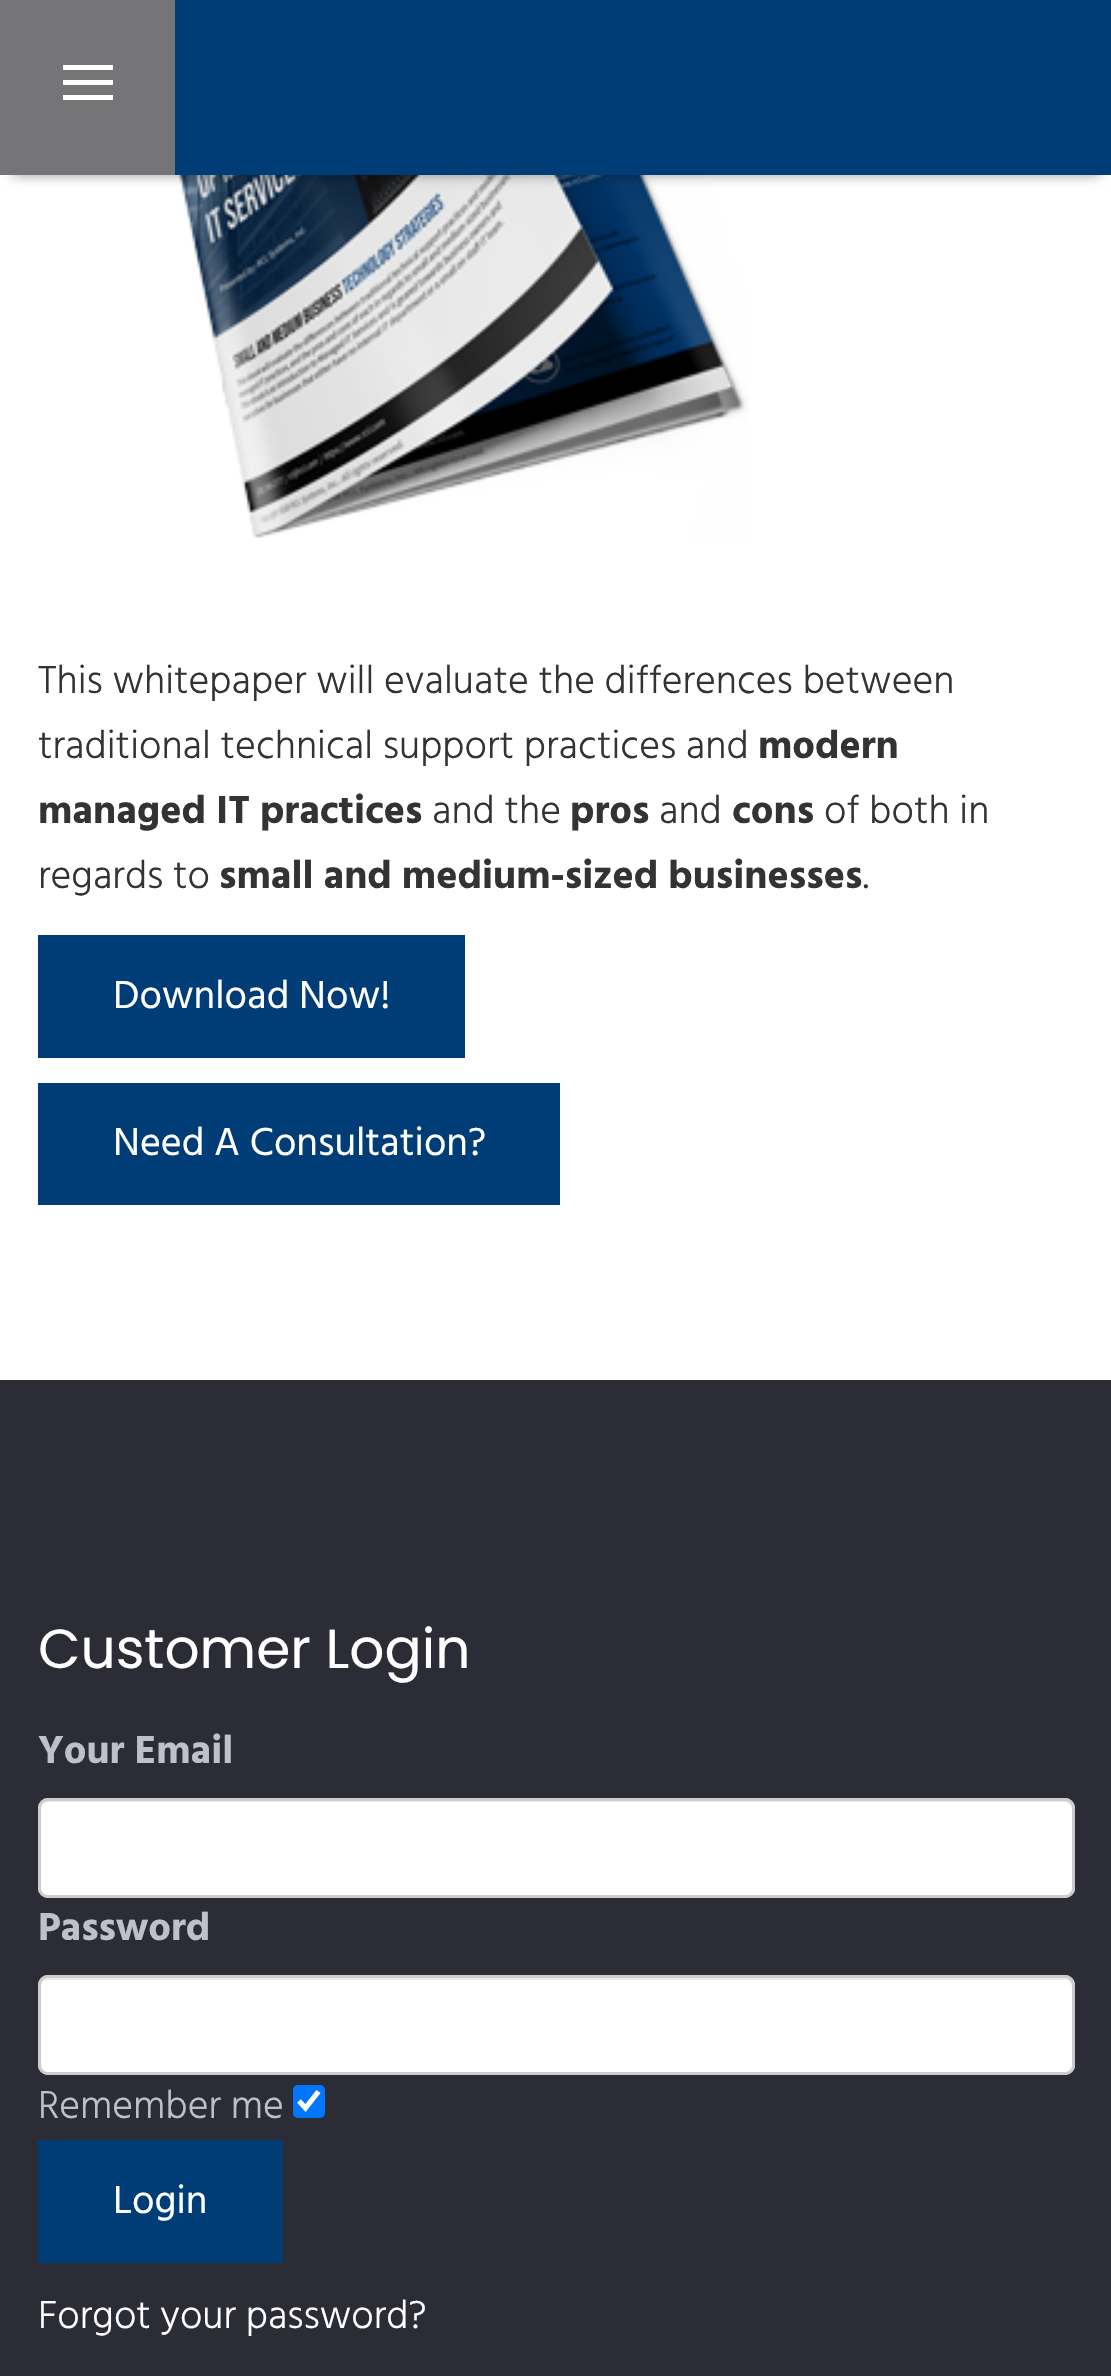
void draw(SkCanvas* canvas) {
	SkPaint paint;
	paint.setAntiAlias(true);
	auto svgPath = [&](const char* data, bool evenOdd = false) {
		SkPath result = *SkParsePath::FromSVGString(data);
		if (evenOdd) result.setFillType(SkPathFillType::kEvenOdd);
		return result;
	};
	canvas->clear(0xffffffff);
	canvas->drawImageRect(SkImages::DeferredFromEncodedData(SkData::MakeFromFileName("img1.png")), SkRect::MakeXYWH(178, 175, 571, 363), SkSamplingOptions());
	paint.setColor(0x66000000);
	paint.setMaskFilter(SkMaskFilter::MakeBlur(kNormal_SkBlurStyle, 6));
	canvas->drawRect(SkRect::MakeXYWH(13, 25, 1087, 150), paint);
	paint.setMaskFilter(nullptr);
	paint.setColor(0xff003c76);
	canvas->drawRect(SkRect::MakeXYWH(175, 0, 936, 175), paint);
	paint.setColor(0xff757477);
	canvas->drawRect(SkRect::MakeXYWH(0, 0, 175, 175), paint);
	paint.setColor(0xffffffff);
	canvas->drawRect(SkRect::MakeXYWH(63, 65, 50, 5), paint);
	canvas->drawRect(SkRect::MakeXYWH(63, 80, 50, 5), paint);
	canvas->drawRect(SkRect::MakeXYWH(63, 95, 50, 5), paint);
	SkFont f1(fontMgr->matchFamilyStyle("Hind", SkFontStyle(300, SkFontStyle::kNormal_Width, SkFontStyle::kUpright_Slant)), 40);
	f1.setSubpixel(true);
	paint.setColor(0xff333333);
	canvas->drawString("This whitepaper will evaluate the differences between", 38, 693, f1, paint);
	canvas->drawString("traditional technical support practices and", 38, 758, f1, paint);
	SkFont f2(fontMgr->matchFamilyStyle("Hind", SkFontStyle::Bold()), 40);
	f2.setSubpixel(true);
	canvas->drawString("modern", 758, 758, f2, paint);
	canvas->drawString("managed IT practices", 38, 823, f2, paint);
	canvas->drawString("and the", 432, 823, f1, paint);
	canvas->drawString("pros", 570, 823, f2, paint);
	canvas->drawString("and", 659, 823, f1, paint);
	canvas->drawString("cons", 732, 823, f2, paint);
	canvas->drawString("of both in", 824, 823, f1, paint);
	canvas->drawString("regards to", 38, 888, f1, paint);
	canvas->drawString("small and medium-sized businesses", 219, 888, f2, paint);
	canvas->drawString(".", 863, 888, f1, paint);
	paint.setColor(0xff003c76);
	canvas->drawRect(SkRect::MakeXYWH(38, 935, 427, 123), paint);
	SkFont f3(fontMgr->matchFamilyStyle("Hind", SkFontStyle::Normal()), 40);
	f3.setSubpixel(true);
	paint.setColor(0xffffffff);
	canvas->drawString("Download Now!", 113, 1008, f3, paint);
	paint.setColor(0xff003c76);
	canvas->drawRect(SkRect::MakeXYWH(38, 1083, 522, 122), paint);
	paint.setColor(0xffffffff);
	canvas->drawString("Need A Consultation?", 113, 1155, f3, paint);
	paint.setColor(0xff2b2c36);
	canvas->drawRect(SkRect::MakeXYWH(0, 1380, 1111, 996), paint);
	SkFont f4(fontMgr->matchFamilyStyle("Poppins", SkFontStyle::Normal()), 55);
	f4.setSubpixel(true);
	paint.setColor(0xffffffff);
	canvas->drawString("Customer Login", 38, 1668, f4, paint);
	paint.setColor(0xffc0c1c8);
	canvas->drawString("Your Email", 38, 1763, f2, paint);
	paint.setColor(0xffffffff);
	canvas->drawRoundRect(SkRect::MakeXYWH(38, 1798, 1037, 100), 10, 10, paint);
	paint.setColor(0xffececec);
	canvas->drawPath(svgPath("M48 1802H1065C1069 1802 1072 1806 1072 1810V1891C1073 1890 1073 1888 1073 1887V1808C1073 1804 1069 1800 1065 1800H48C44 1800 40 1804 40 1808V1810C40 1806 43 1802 48 1802Z"), paint);
	paint.setStroke(true);
	paint.setStrokeWidth(3);
	paint.setColor(0xffcccccc);
	canvas->drawRoundRect(SkRect::MakeXYWH(39.5, 1799.5, 1034, 97), 8.5, 8.5, paint);
	paint.setStroke(false);
	paint.setColor(0xffc0c1c8);
	canvas->drawString("Password", 38, 1940, f2, paint);
	paint.setColor(0xffffffff);
	canvas->drawRoundRect(SkRect::MakeXYWH(38, 1975, 1037, 100), 10, 10, paint);
	paint.setColor(0xffececec);
	canvas->drawPath(svgPath("M48 1980H1065C1069 1980 1072 1983 1072 1988V2069C1073 2068 1073 2066 1073 2065V1986C1073 1982 1069 1978 1065 1978H48C44 1978 40 1982 40 1986V1988C40 1983 43 1980 48 1980Z"), paint);
	paint.setStroke(true);
	paint.setColor(0xffcccccc);
	canvas->drawRoundRect(SkRect::MakeXYWH(39.5, 1976.5, 1034, 97), 8.5, 8.5, paint);
	paint.setStroke(false);
	paint.setColor(0xffc0c1c8);
	canvas->drawString("Remember me", 38, 2118, f1, paint);
	paint.setColor(0xff0075ff);
	canvas->drawRoundRect(SkRect::MakeXYWH(293, 2085, 32, 33), 5, 5, paint);
	paint.setStroke(true);
	paint.setStrokeWidth(5.2);
	paint.setColor(0xffffffff);
	canvas->drawPath(svgPath("M299 2101L305.5 2108L318.5 2091.5"), paint);
	paint.setStroke(false);
	paint.setColor(0xff003c76);
	canvas->drawRect(SkRect::MakeXYWH(38, 2140, 245, 123), paint);
	paint.setColor(0xffffffff);
	canvas->drawString("Login", 113, 2213, f3, paint);
	canvas->drawString("Forgot your password?", 38, 2328, f1, paint);
}
